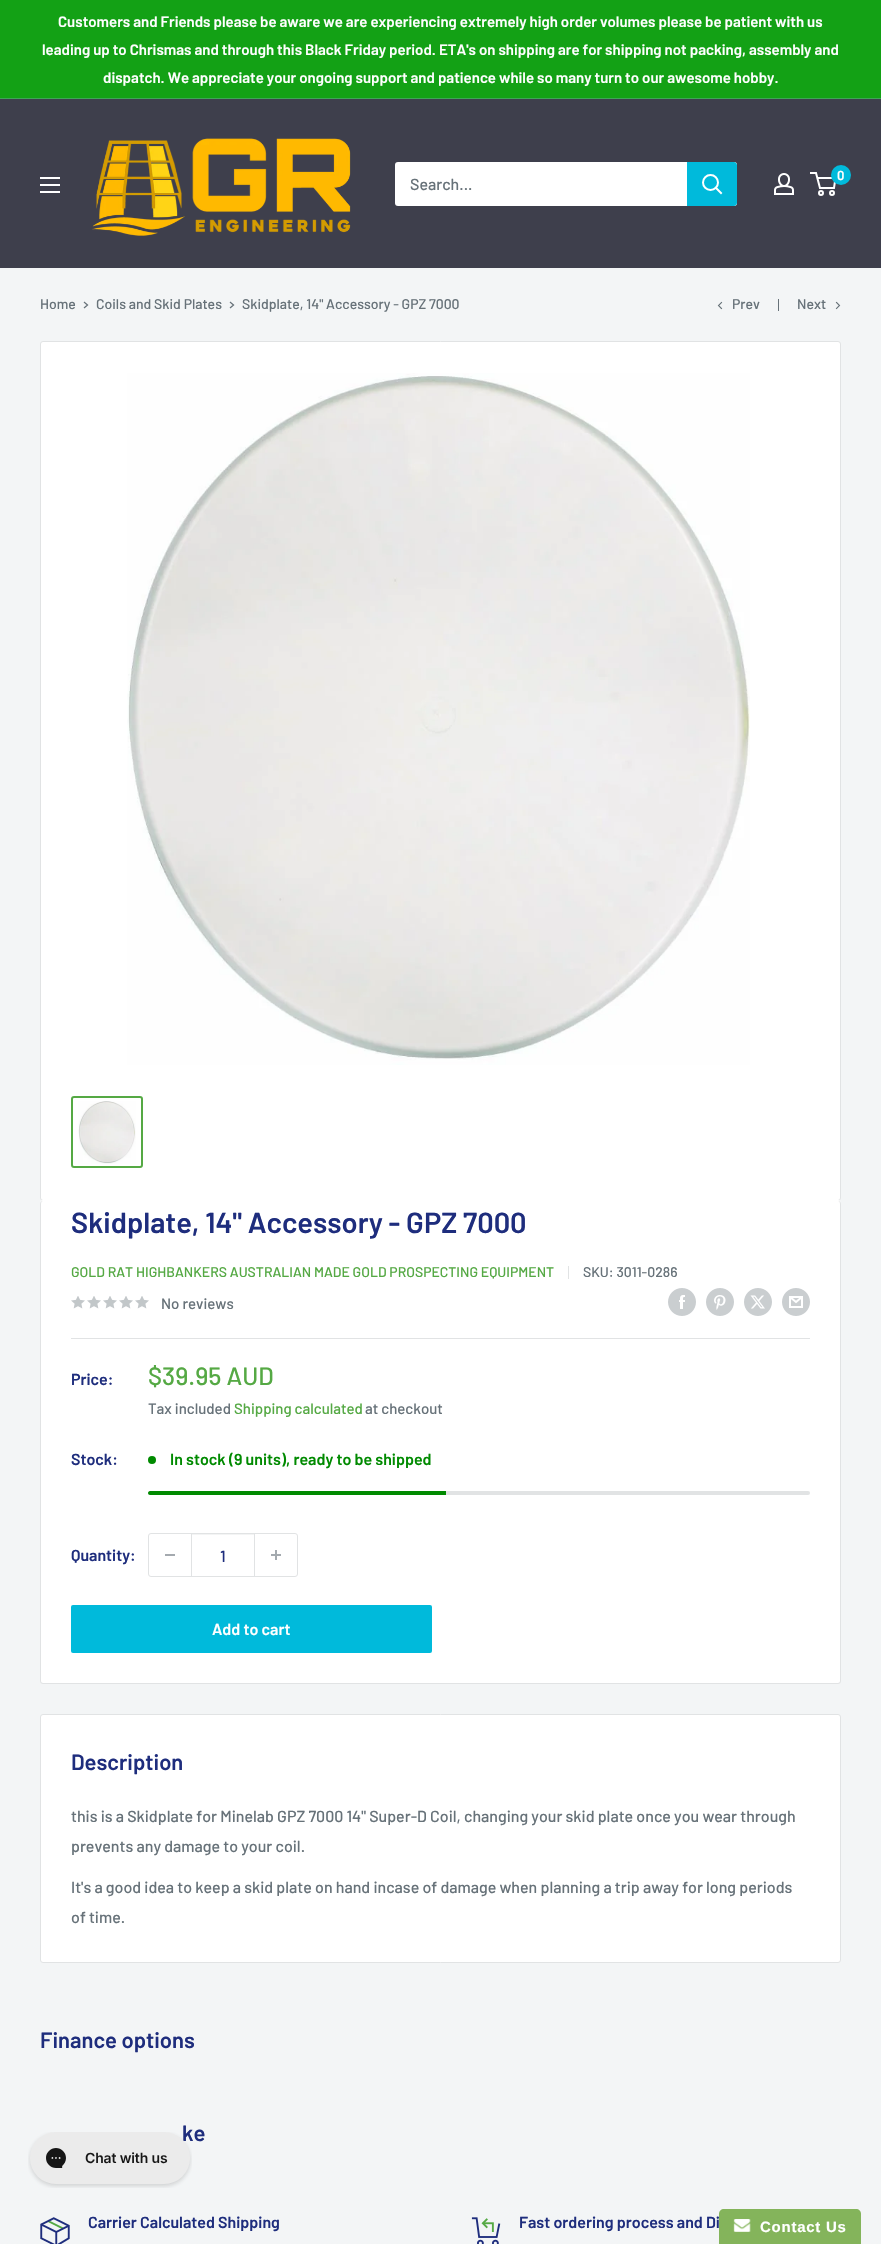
void draw(SkCanvas* canvas) {
	SkPaint paint;
	paint.setAntiAlias(true);
	auto spacedText = [&](const char* s, float x, float y, const SkFont& font, const SkPaint& ink, float letter, float word) {
		std::vector<SkGlyphID> glyphs(font.countText(s, strlen(s), SkTextEncoding::kUTF8));
		std::vector<float> xs(glyphs.size());
		font.textToGlyphs(s, strlen(s), SkTextEncoding::kUTF8, glyphs);
		font.getXPos(glyphs, xs, x);
		float extra = 0;
		for (size_t i = 0; i < glyphs.size(); i++) {
			xs[i] += extra;
			extra += letter + word * (glyphs[i] == font.unicharToGlyph(' '));
		}
		canvas->drawTextBlob(SkTextBlob::MakeFromPosHGlyphs(glyphs, xs, y, font), 0, 0, ink);
	};
	auto svgPath = [&](const char* data, bool evenOdd = false) {
		SkPath result = *SkParsePath::FromSVGString(data);
		if (evenOdd) result.setFillType(SkPathFillType::kEvenOdd);
		return result;
	};
	canvas->clear(0xfff3f5f6);
	paint.setColor(0xff13a115);
	canvas->drawRect(SkRect::MakeXYWH(0, 0, 881, 98), paint);
	paint.setColor(0xff3ea556);
	canvas->drawRect(SkRect::MakeXYWH(0, 98, 881, 1), paint);
	SkFont f1(fontMgr->matchFamilyStyle("Barlow", SkFontStyle(600, SkFontStyle::kNormal_Width, SkFontStyle::kUpright_Slant)), 15);
	f1.setSubpixel(true);
	paint.setColor(0xffffffff);
	canvas->drawString("Customers and Friends please be aware we are experiencing extremely high order volumes please be patient with us", 58, 27, f1, paint);
	canvas->drawString("leading up to Chrismas and through this Black Friday period. ETA's on shipping are for shipping not packing, assembly and", 42, 55, f1, paint);
	canvas->drawString("dispatch. We appreciate your ongoing support and patience while so many turn to our awesome hobby.", 103, 83, f1, paint);
	paint.setColor(0xff3e3f4c);
	canvas->drawRect(SkRect::MakeXYWH(0, 99, 881, 169), paint);
	canvas->drawImageRect(SkImages::DeferredFromEncodedData(SkData::MakeFromFileName("img1.png")), SkRect::MakeXYWH(92, 138, 259, 98), SkSamplingOptions());
	canvas->drawImageRect(SkImages::DeferredFromEncodedData(SkData::MakeFromFileName("img2.png")), SkRect::MakeXYWH(774, 173, 20, 22), SkSamplingOptions());
	paint.setStroke(true);
	paint.setStrokeWidth(2);
	paint.setColor(0xffffffff);
	canvas->drawCircle(821, 193, 2, paint);
	canvas->drawCircle(832, 193, 2, paint);
	canvas->drawPath(svgPath("M817.5 178H835.5L834 188H820L816 173H810"), paint);
	paint.setStroke(false);
	paint.setColor(0xff00badb);
	canvas->drawCircle(841, 175, 10, paint);
	SkFont f2(fontMgr->matchFamilyStyle("Barlow", SkFontStyle(600, SkFontStyle::kNormal_Width, SkFontStyle::kUpright_Slant)), 13);
	f2.setSubpixel(true);
	paint.setColor(0xffffffff);
	canvas->drawString("0", 837, 180, f2, paint);
	canvas->drawImageRect(SkImages::DeferredFromEncodedData(SkData::MakeFromFileName("img3.png")), SkRect::MakeXYWH(40, 177, 20, 16), SkSamplingOptions());
	canvas->drawRoundRect(SkRect::MakeXYWH(395, 162, 342, 44), 3, 3, paint);
	SkFont f3(fontMgr->matchFamilyStyle("Barlow", SkFontStyle(500, SkFontStyle::kNormal_Width, SkFontStyle::kUpright_Slant)), 16);
	f3.setSubpixel(true);
	paint.setColor(0xff677279);
	canvas->drawString("Search...", 410, 190, f3, paint);
	paint.setColor(0xff00badb);
	canvas->drawPath(svgPath("M687 162H734C735.5 162 737 163.5 737 165V203C737 204.5 735.5 206 734 206H687Z"), paint);
	paint.setStroke(true);
	paint.setStrokeCap(SkPaint::kSquare_Cap);
	paint.setColor(0xffffffff);
	canvas->drawPath(svgPath("M721 193L716 188"), paint);
	paint.setStrokeCap(SkPaint::kButt_Cap);
	canvas->drawCircle(710.5, 182.5, 7.5, paint);
	SkFont f4(fontMgr->matchFamilyStyle("Barlow", SkFontStyle(500, SkFontStyle::kNormal_Width, SkFontStyle::kUpright_Slant)), 14);
	f4.setSubpixel(true);
	paint.setStroke(false);
	paint.setColor(0xff677279);
	canvas->drawString("Home", 40, 309, f4, paint);
	paint.setStroke(true);
	paint.setStrokeWidth(1.3);
	paint.setStrokeCap(SkPaint::kSquare_Cap);
	canvas->drawPath(svgPath("M84.5 302.5L87.5 305L84.5 307.5"), paint);
	paint.setStroke(false);
	canvas->drawString("Coils and Skid Plates", 96, 309, f4, paint);
	paint.setStroke(true);
	canvas->drawPath(svgPath("M230.5 302.5L233.5 305L230.5 307.5"), paint);
	paint.setStroke(false);
	canvas->drawString("Skidplate, 14\" Accessory - GPZ 7000", 242, 309, f4, paint);
	paint.setStroke(true);
	paint.setStrokeWidth(1.1);
	canvas->drawPath(svgPath("M721.5 308.5L718.5 305.5L721.5 302.5"), paint);
	paint.setStroke(false);
	canvas->drawString("Prev", 732, 309, f4, paint);
	canvas->drawRect(SkRect::MakeXYWH(778, 299, 1, 12), paint);
	canvas->drawString("Next", 797, 309, f4, paint);
	paint.setStroke(true);
	canvas->drawPath(svgPath("M836.5 302.5L839.5 305.5L836.5 308.5"), paint);
	paint.setStroke(false);
	paint.setColor(0xffffffff);
	canvas->drawRoundRect(SkRect::MakeXYWH(40.5, 341.5, 800, 859), 2.5, 2.5, paint);
	paint.setStroke(true);
	paint.setStrokeWidth(1);
	paint.setStrokeCap(SkPaint::kButt_Cap);
	paint.setColor(0xffe1e3e4);
	canvas->drawRoundRect(SkRect::MakeXYWH(40.5, 341.5, 800, 859), 2.5, 2.5, paint);
	canvas->drawImageRect(SkImages::DeferredFromEncodedData(SkData::MakeFromFileName("img4.png")), SkRect::MakeXYWH(127, 373, 623, 692), SkSamplingOptions());
	paint.setStrokeWidth(2);
	paint.setColor(0xff55a944);
	canvas->drawRoundRect(SkRect::MakeXYWH(72, 1097, 70, 70), 2, 2, paint);
	canvas->drawImageRect(SkImages::DeferredFromEncodedData(SkData::MakeFromFileName("img5.png")), SkRect::MakeXYWH(78, 1101, 58, 63), SkSamplingOptions());
	paint.setStroke(false);
	paint.setColor(0xffffffff);
	canvas->drawPath(svgPath("M43 1200C41 1200 40 1202 40 1204C40 1202 41 1201 43 1201H838C840 1201 841 1202 841 1204C841 1202 840 1200 838 1200Z"), paint);
	canvas->drawRoundRect(SkRect::MakeXYWH(40, 1201, 801, 483), 3, 3, paint);
	paint.setColor(0xffe1e3e4);
	canvas->drawPath(svgPath("M43 1201H838C840 1201 841 1202 841 1204V1681C841 1683 840 1684 838 1684H43C41 1684 40 1683 40 1681V1204C40 1202 41 1201 43 1201ZM43 1201H838C839 1201 840 1202 840 1204V1681C840 1682 839 1683 838 1683H43C42 1683 41 1682 41 1681V1204C41 1202 42 1201 43 1201Z", true), paint);
	SkFont f5(fontMgr->matchFamilyStyle("Barlow", SkFontStyle(600, SkFontStyle::kNormal_Width, SkFontStyle::kUpright_Slant)), 29);
	f5.setSubpixel(true);
	paint.setColor(0xff1e2d7d);
	canvas->drawString("Skidplate, 14\" Accessory - GPZ 7000", 71, 1233, f5, paint);
	paint.setColor(0xff55a944);
	canvas->drawString("GOLD RAT HIGHBANKERS AUSTRALIAN MADE GOLD PROSPECTING EQUIPMENT", 71, 1277, f4, paint);
	paint.setColor(0xffe1e3e4);
	canvas->drawRect(SkRect::MakeXYWH(568, 1266, 1, 13), paint);
	paint.setColor(0xff677279);
	canvas->drawString("SKU: 3011-0286", 583, 1277, f4, paint);
	canvas->drawImageRect(SkImages::DeferredFromEncodedData(SkData::MakeFromFileName("img6.png")), SkRect::MakeXYWH(71, 1296, 14, 13), SkSamplingOptions());
	canvas->drawImageRect(SkImages::DeferredFromEncodedData(SkData::MakeFromFileName("img6.png")), SkRect::MakeXYWH(87, 1296, 14, 13), SkSamplingOptions());
	canvas->drawImageRect(SkImages::DeferredFromEncodedData(SkData::MakeFromFileName("img6.png")), SkRect::MakeXYWH(103, 1296, 14, 13), SkSamplingOptions());
	canvas->drawImageRect(SkImages::DeferredFromEncodedData(SkData::MakeFromFileName("img6.png")), SkRect::MakeXYWH(119, 1296, 14, 13), SkSamplingOptions());
	canvas->drawImageRect(SkImages::DeferredFromEncodedData(SkData::MakeFromFileName("img6.png")), SkRect::MakeXYWH(135, 1296, 14, 13), SkSamplingOptions());
	SkFont f6(fontMgr->matchFamilyStyle("Barlow", SkFontStyle(500, SkFontStyle::kNormal_Width, SkFontStyle::kUpright_Slant)), 15);
	f6.setSubpixel(true);
	canvas->drawString("No reviews", 161, 1309, f6, paint);
	canvas->drawImageRect(SkImages::DeferredFromEncodedData(SkData::MakeFromFileName("img7.png")), SkRect::MakeXYWH(668, 1288, 28, 28), SkSamplingOptions());
	canvas->drawImageRect(SkImages::DeferredFromEncodedData(SkData::MakeFromFileName("img8.png")), SkRect::MakeXYWH(706, 1288, 28, 28), SkSamplingOptions());
	canvas->drawImageRect(SkImages::DeferredFromEncodedData(SkData::MakeFromFileName("img9.png")), SkRect::MakeXYWH(744, 1288, 28, 28), SkSamplingOptions());
	canvas->drawImageRect(SkImages::DeferredFromEncodedData(SkData::MakeFromFileName("img10.png")), SkRect::MakeXYWH(782, 1288, 28, 28), SkSamplingOptions());
	paint.setColor(0xffe1e3e4);
	canvas->drawRect(SkRect::MakeXYWH(71, 1338, 739, 1), paint);
	SkFont f7(fontMgr->matchFamilyStyle("Barlow", SkFontStyle(600, SkFontStyle::kNormal_Width, SkFontStyle::kUpright_Slant)), 16);
	f7.setSubpixel(true);
	paint.setColor(0xff1e2d7d);
	canvas->drawString("Price:", 71, 1385, f7, paint);
	SkFont f8(fontMgr->matchFamilyStyle("Barlow", SkFontStyle(500, SkFontStyle::kNormal_Width, SkFontStyle::kUpright_Slant)), 25);
	f8.setSubpixel(true);
	paint.setColor(0xff55a944);
	canvas->drawString("$39.95 AUD", 148, 1385, f8, paint);
	paint.setColor(0xff677279);
	canvas->drawString("Tax included", 148, 1414, f6, paint);
	paint.setColor(0xff55a944);
	canvas->drawString("Shipping calculated", 234, 1414, f6, paint);
	paint.setColor(0xff677279);
	canvas->drawString("at checkout", 365, 1414, f6, paint);
	paint.setColor(0xff1e2d7d);
	canvas->drawString("Stock:", 71, 1465, f7, paint);
	paint.setColor(0xff008a00);
	canvas->drawCircle(152, 1460, 4, paint);
	canvas->drawString("In stock (9 units), ready to be shipped", 170, 1465, f7, paint);
	paint.setColor(0xffe1e3e4);
	canvas->drawRoundRect(SkRect::MakeXYWH(148, 1491, 662, 4), 2, 2, paint);
	paint.setColor(0xff008a00);
	canvas->drawPath(svgPath("M150 1491H446V1495H150C149 1495 148 1494 148 1493C148 1492 149 1491 150 1491Z"), paint);
	paint.setColor(0xff1e2d7d);
	canvas->drawString("Quantity:", 71, 1561, f7, paint);
	paint.setStroke(true);
	paint.setStrokeWidth(1);
	paint.setColor(0xffe1e3e4);
	canvas->drawRoundRect(SkRect::MakeXYWH(148.5, 1533.5, 149, 43), 2.5, 2.5, paint);
	paint.setStroke(false);
	paint.setColor(0xffa4aaaf);
	canvas->drawRect(SkRect::MakeXYWH(165, 1554, 10, 2), paint);
	paint.setColor(0xfff3f4f4);
	canvas->drawRect(SkRect::MakeXYWH(192, 1534, 62, 1), paint);
	paint.setColor(0xffe1e3e4);
	canvas->drawRect(SkRect::MakeXYWH(254, 1534, 1, 42), paint);
	canvas->drawRect(SkRect::MakeXYWH(191, 1534, 1, 42), paint);
	paint.setColor(0xff1e2d7d);
	canvas->drawString("1", 220, 1562, f3, paint);
	canvas->drawImageRect(SkImages::DeferredFromEncodedData(SkData::MakeFromFileName("img11.png")), SkRect::MakeXYWH(271, 1550, 10, 10), SkSamplingOptions());
	paint.setColor(0xff00badb);
	canvas->drawRoundRect(SkRect::MakeXYWH(71, 1605, 361, 48), 2, 2, paint);
	paint.setColor(0xffffffff);
	canvas->drawString("Add to cart", 212, 1635, f7, paint);
	canvas->drawRoundRect(SkRect::MakeXYWH(40.5, 1714.5, 800, 248), 2.5, 2.5, paint);
	paint.setStroke(true);
	paint.setColor(0xffe1e3e4);
	canvas->drawRoundRect(SkRect::MakeXYWH(40.5, 1714.5, 800, 248), 2.5, 2.5, paint);
	SkFont f9(fontMgr->matchFamilyStyle("Barlow", SkFontStyle(600, SkFontStyle::kNormal_Width, SkFontStyle::kUpright_Slant)), 22);
	f9.setSubpixel(true);
	paint.setStroke(false);
	paint.setColor(0xff1e2d7d);
	canvas->drawString("Description", 71, 1770, f9, paint);
	paint.setColor(0xff677279);
	canvas->drawString("this is a Skidplate for Minelab GPZ 7000 14\" Super-D Coil, changing your skid plate once you wear through", 71, 1822, f3, paint);
	canvas->drawString("prevents any damage to your coil.", 71, 1852, f3, paint);
	canvas->drawString("It's a good idea to keep a skid plate on hand incase of damage when planning a trip away for long periods", 71, 1893, f3, paint);
	canvas->drawString("of time.", 71, 1923, f3, paint);
	paint.setColor(0xff1e2d7d);
	canvas->drawString("Finance options", 40, 2048, f9, paint);
	canvas->drawString("ke", 182, 2141, f9, paint);
	canvas->drawImageRect(SkImages::DeferredFromEncodedData(SkData::MakeFromFileName("img12.png")), SkRect::MakeXYWH(28, 2132, 164, 56), SkSamplingOptions());
	canvas->drawImageRect(SkImages::DeferredFromEncodedData(SkData::MakeFromFileName("img13.png")), SkRect::MakeXYWH(40, 2217, 30, 27), SkSamplingOptions());
	canvas->drawString("Carrier Calculated Shipping", 88, 2228, f7, paint);
	canvas->drawImageRect(SkImages::DeferredFromEncodedData(SkData::MakeFromFileName("img14.png")), SkRect::MakeXYWH(471, 2217, 30, 27), SkSamplingOptions());
	canvas->drawString("Fast ordering process and Di", 519, 2228, f7, paint);
	paint.setColor(0xff84b45b);
	canvas->drawPath(svgPath("M724 2209H856C859 2209 861 2211 861 2214V2244H719V2214C719 2211 721 2209 724 2209Z"), paint);
	canvas->drawImageRect(SkImages::DeferredFromEncodedData(SkData::MakeFromFileName("img15.png")), SkRect::MakeXYWH(733, 2219, 18, 13), SkSamplingOptions());
	SkFont f10(fontMgr->matchFamilyStyle("Liberation Sans", SkFontStyle::Bold()), 15);
	f10.setSubpixel(true);
	paint.setColor(0xffffffff);
	spacedText("Contact Us", 760, 2232, f10, paint, 0.75, 0);
}
